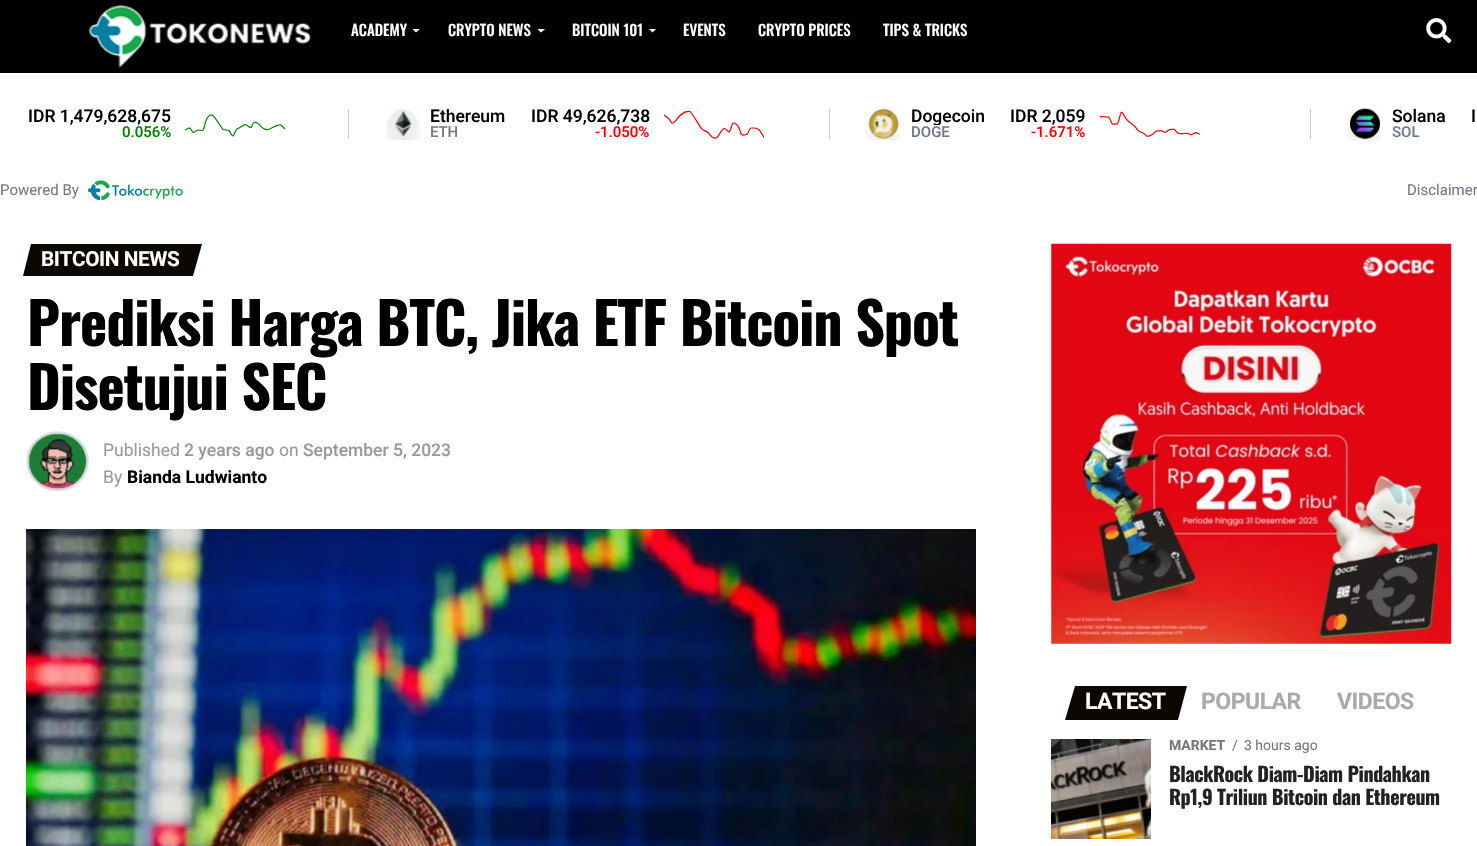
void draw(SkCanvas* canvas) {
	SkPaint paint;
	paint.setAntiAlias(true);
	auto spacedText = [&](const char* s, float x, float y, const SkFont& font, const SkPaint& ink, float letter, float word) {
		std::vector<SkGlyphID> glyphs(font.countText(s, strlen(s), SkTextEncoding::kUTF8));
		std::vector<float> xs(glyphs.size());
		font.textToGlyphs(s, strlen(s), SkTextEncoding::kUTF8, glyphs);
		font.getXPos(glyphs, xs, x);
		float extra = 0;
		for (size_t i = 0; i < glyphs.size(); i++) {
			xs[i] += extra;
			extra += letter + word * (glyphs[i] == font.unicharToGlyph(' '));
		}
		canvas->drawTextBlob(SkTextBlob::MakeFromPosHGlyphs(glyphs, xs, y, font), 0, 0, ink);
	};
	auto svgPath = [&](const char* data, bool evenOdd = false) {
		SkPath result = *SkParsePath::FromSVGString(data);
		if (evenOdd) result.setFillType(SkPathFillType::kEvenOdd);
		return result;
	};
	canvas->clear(0xffffffff);
	paint.setColor(0xff000000);
	canvas->drawRect(SkRect::MakeXYWH(0, 0, 1477, 73), paint);
	canvas->drawImageRect(SkImages::DeferredFromEncodedData(SkData::MakeFromFileName("img1.png")), SkRect::MakeXYWH(88, 5, 223, 63), SkSamplingOptions());
	SkFont f1(fontMgr->matchFamilyStyle("Oswald", SkFontStyle(500, SkFontStyle::kNormal_Width, SkFontStyle::kUpright_Slant)), 15);
	f1.setSubpixel(true);
	paint.setColor(0xffffffff);
	canvas->drawString("ACADEMY", 351, 36, f1, paint);
	canvas->drawPath(svgPath("M412.5 29H420L416 32.5Z"), paint);
	canvas->drawString("CRYPTO NEWS", 448, 36, f1, paint);
	canvas->drawPath(svgPath("M537.5 29H545L541 32.5Z"), paint);
	canvas->drawString("BITCOIN 101", 572, 36, f1, paint);
	canvas->drawPath(svgPath("M649 29H656L652.5 32.5Z"), paint);
	canvas->drawString("EVENTS", 683, 36, f1, paint);
	canvas->drawString("CRYPTO PRICES", 758, 36, f1, paint);
	canvas->drawString("TIPS & TRICKS", 883, 36, f1, paint);
	canvas->drawImageRect(SkImages::DeferredFromEncodedData(SkData::MakeFromFileName("img2.png")), SkRect::MakeXYWH(1426, 18, 26, 26), SkSamplingOptions());
	SkFont f2(fontMgr->matchFamilyStyle("Roboto", SkFontStyle(500, SkFontStyle::kNormal_Width, SkFontStyle::kUpright_Slant)), 17.5);
	f2.setSubpixel(true);
	paint.setColor(0xff000000);
	canvas->drawString("IDR 1,479,628,675", 28, 122, f2, paint);
	SkFont f3(fontMgr->matchFamilyStyle("Roboto", SkFontStyle(500, SkFontStyle::kNormal_Width, SkFontStyle::kUpright_Slant)), 15);
	f3.setSubpixel(true);
	paint.setColor(0xff008000);
	canvas->drawString("0.056%", 122, 137, f3, paint);
	paint.setStroke(true);
	paint.setStrokeWidth(1.2);
	canvas->drawPath(svgPath("M185 130L189 128C191.5 127.5 191.5 132.5 193.5 132.5L198 130L202.5 130.5C205 129.5 204.5 116.5 210.5 115C212 114.5 213 116 214 116.5L223 129.5L229 130.5C230 131.5 231.5 136 233 136C234 135.5 236 130.5 236.5 129.5L244 125C247.5 123 249 129.5 251.5 127C252 125.5 253 122.5 254.5 122.5C259 121.5 260.5 127 263.5 128.5C264.5 129 266.5 130 268 129.5C271 129 278 123.5 281 125L285 129"), paint);
	paint.setStroke(false);
	paint.setColor(0xffcccdcf);
	canvas->drawRect(SkRect::MakeXYWH(348, 109, 1, 30), paint);
	canvas->drawImageRect(SkImages::DeferredFromEncodedData(SkData::MakeFromFileName("img3.png")), SkRect::MakeXYWH(386, 108, 34, 32), SkSamplingOptions());
	paint.setColor(0xff000000);
	canvas->drawString("Ethereum", 430, 122, f2, paint);
	canvas->drawString("IDR 49,626,738", 531, 122, f2, paint);
	paint.setColor(0xff707a8a);
	canvas->drawString("ETH", 430, 137, f3, paint);
	paint.setColor(0xffff0000);
	canvas->drawString("-1.050%", 595, 137, f3, paint);
	canvas->save();
	canvas->clipRect(SkRect::MakeXYWH(664, 109, 100, 30));
	paint.setStroke(true);
	canvas->drawPath(svgPath("M664 115L668.5 118.5L672 123C675 124.5 680 110 690 111.5C691.5 112 699.5 126 701.5 128.5C703 131 706 130.5 708 132.5C710.5 135 711.5 139 716 138C718.5 138 720.5 130 724 128.5C726.5 128 728.5 133.5 729.5 131.5C732 129 731 120 736 124C738.5 125.5 739 128 740 130.5C741 134 741 135.5 744.5 135C750 135 748 128.5 751 128H754C760 128 761.5 133.5 764 137.5"), paint);
	canvas->restore();
	paint.setStroke(false);
	paint.setColor(0xffcccdcf);
	canvas->drawRect(SkRect::MakeXYWH(829, 109, 1, 30), paint);
	canvas->drawImageRect(SkImages::DeferredFromEncodedData(SkData::MakeFromFileName("img4.png")), SkRect::MakeXYWH(866, 108, 34, 32), SkSamplingOptions());
	canvas->save();
	canvas->clipRect(SkRect::MakeXYWH(911, 108, 74, 17));
	paint.setColor(0xff000000);
	canvas->drawString("Dogecoin", 911, 122, f2, paint);
	canvas->restore();
	canvas->drawString("IDR 2,059", 1010, 122, f2, paint);
	paint.setColor(0xff707a8a);
	canvas->drawString("DOGE", 911, 137, f3, paint);
	paint.setColor(0xffff0000);
	canvas->drawString("-1.671%", 1031, 137, f3, paint);
	canvas->drawImageRect(SkImages::DeferredFromEncodedData(SkData::MakeFromFileName("img5.png")), SkRect::MakeXYWH(1100, 111, 100, 26), SkSamplingOptions());
	paint.setColor(0xffcccdcf);
	canvas->drawRect(SkRect::MakeXYWH(1310, 109, 1, 30), paint);
	canvas->drawImageRect(SkImages::DeferredFromEncodedData(SkData::MakeFromFileName("img6.png")), SkRect::MakeXYWH(1348, 108, 33, 32), SkSamplingOptions());
	paint.setColor(0xff000000);
	canvas->drawString("Solana", 1392, 122, f2, paint);
	canvas->drawString("I", 1471, 122, f2, paint);
	paint.setColor(0xff707a8a);
	canvas->drawString("SOL", 1392, 137, f3, paint);
	SkFont f4(fontMgr->matchFamilyStyle("Roboto", SkFontStyle::Normal()), 15);
	f4.setSubpixel(true);
	canvas->drawString("Powered By", 0, 195, f4, paint);
	canvas->drawImageRect(SkImages::DeferredFromEncodedData(SkData::MakeFromFileName("img7.png")), SkRect::MakeXYWH(88, 180, 95, 21), SkSamplingOptions());
	canvas->drawString("Disclaimer", 1407, 195, f4, paint);
	paint.setColor(0xff0c0700);
	canvas->drawPath(svgPath("M31 244H202L193 276H23Z"), paint);
	SkFont f5(fontMgr->matchFamilyStyle("Roboto", SkFontStyle::Bold()), 20.75);
	f5.setSubpixel(true);
	paint.setColor(0xffffffff);
	spacedText("BITCOIN NEWS", 41, 266, f5, paint, -0.4, 0);
	SkFont f6(fontMgr->matchFamilyStyle("Oswald", SkFontStyle::Bold()), 58);
	f6.setSubpixel(true);
	paint.setColor(0xff000000);
	spacedText("Prediksi Harga BTC, Jika ETF Bitcoin Spot", 27, 346, f6, paint, -1.15, 0);
	spacedText("Disetujui SEC", 27, 410, f6, paint, -1.15, 0);
	paint.setStroke(true);
	paint.setStrokeWidth(2.5);
	paint.setColor(0xffdddddd);
	canvas->drawPath(svgPath("M57.5 432.5C74 432.5 87.5 445.5 87.5 461C87.5 477 74 490 57.5 490C41 490 27.5 477 27.5 461C27.5 445.5 41 432.5 57.5 432.5Z"), paint);
	canvas->drawImageRect(SkImages::DeferredFromEncodedData(SkData::MakeFromFileName("img8.png")), SkRect::MakeXYWH(28, 433, 59, 57), SkSamplingOptions());
	SkFont f7(fontMgr->matchFamilyStyle("Roboto", SkFontStyle::Normal()), 17.5);
	f7.setSubpixel(true);
	paint.setStroke(false);
	paint.setColor(0xff999999);
	canvas->drawString("Published", 103, 456, f7, paint);
	canvas->drawString("2 years ago", 184, 456, f2, paint);
	canvas->drawString("on", 279, 456, f7, paint);
	canvas->drawString("September 5, 2023", 303, 456, f2, paint);
	canvas->drawString("By", 103, 483, f7, paint);
	SkFont f8(fontMgr->matchFamilyStyle("Roboto", SkFontStyle::Bold()), 17.5);
	f8.setSubpixel(true);
	paint.setColor(0xff000000);
	canvas->drawString("Bianda Ludwianto", 127, 483, f8, paint);
	canvas->drawImageRect(SkImages::DeferredFromEncodedData(SkData::MakeFromFileName("img9.png")), SkRect::MakeXYWH(26, 529, 950, 317), SkSamplingOptions());
	canvas->drawImageRect(SkImages::DeferredFromEncodedData(SkData::MakeFromFileName("img10.png")), SkRect::MakeXYWH(1051, 243, 401, 401), SkSamplingOptions());
	paint.setColor(0xff0c0700);
	canvas->drawPath(svgPath("M1075 686H1187L1178 720H1065Z"), paint);
	SkFont f9(fontMgr->matchFamilyStyle("Roboto", SkFontStyle::Bold()), 23);
	f9.setSubpixel(true);
	paint.setColor(0xffffffff);
	spacedText("LATEST", 1085, 709, f9, paint, -0.5, 0);
	paint.setColor(0xffaaaaaa);
	spacedText("POPULAR", 1201, 709, f9, paint, -0.5, 0);
	spacedText("VIDEOS", 1337, 709, f9, paint, -0.5, 0);
	canvas->drawImageRect(SkImages::DeferredFromEncodedData(SkData::MakeFromFileName("img11.png")), SkRect::MakeXYWH(1051, 739, 100, 100), SkSamplingOptions());
	SkFont f10(fontMgr->matchFamilyStyle("Roboto", SkFontStyle::Bold()), 14);
	f10.setSubpixel(true);
	paint.setColor(0xff777777);
	canvas->drawString("MARKET", 1169, 750, f10, paint);
	SkFont f11(fontMgr->matchFamilyStyle("Roboto", SkFontStyle::Normal()), 14);
	f11.setSubpixel(true);
	canvas->drawString("/", 1232, 750, f11, paint);
	canvas->drawString("3 hours ago", 1244, 750, f11, paint);
	SkFont f12(fontMgr->matchFamilyStyle("Oswald", SkFontStyle::Bold()), 20);
	f12.setSubpixel(true);
	paint.setColor(0xff222222);
	spacedText("BlackRock Diam-Diam Pindahkan", 1169, 782, f12, paint, -0.4, 0);
	spacedText("Rp1,9 Triliun Bitcoin dan Ethereum", 1169, 805, f12, paint, -0.4, 0);
}
